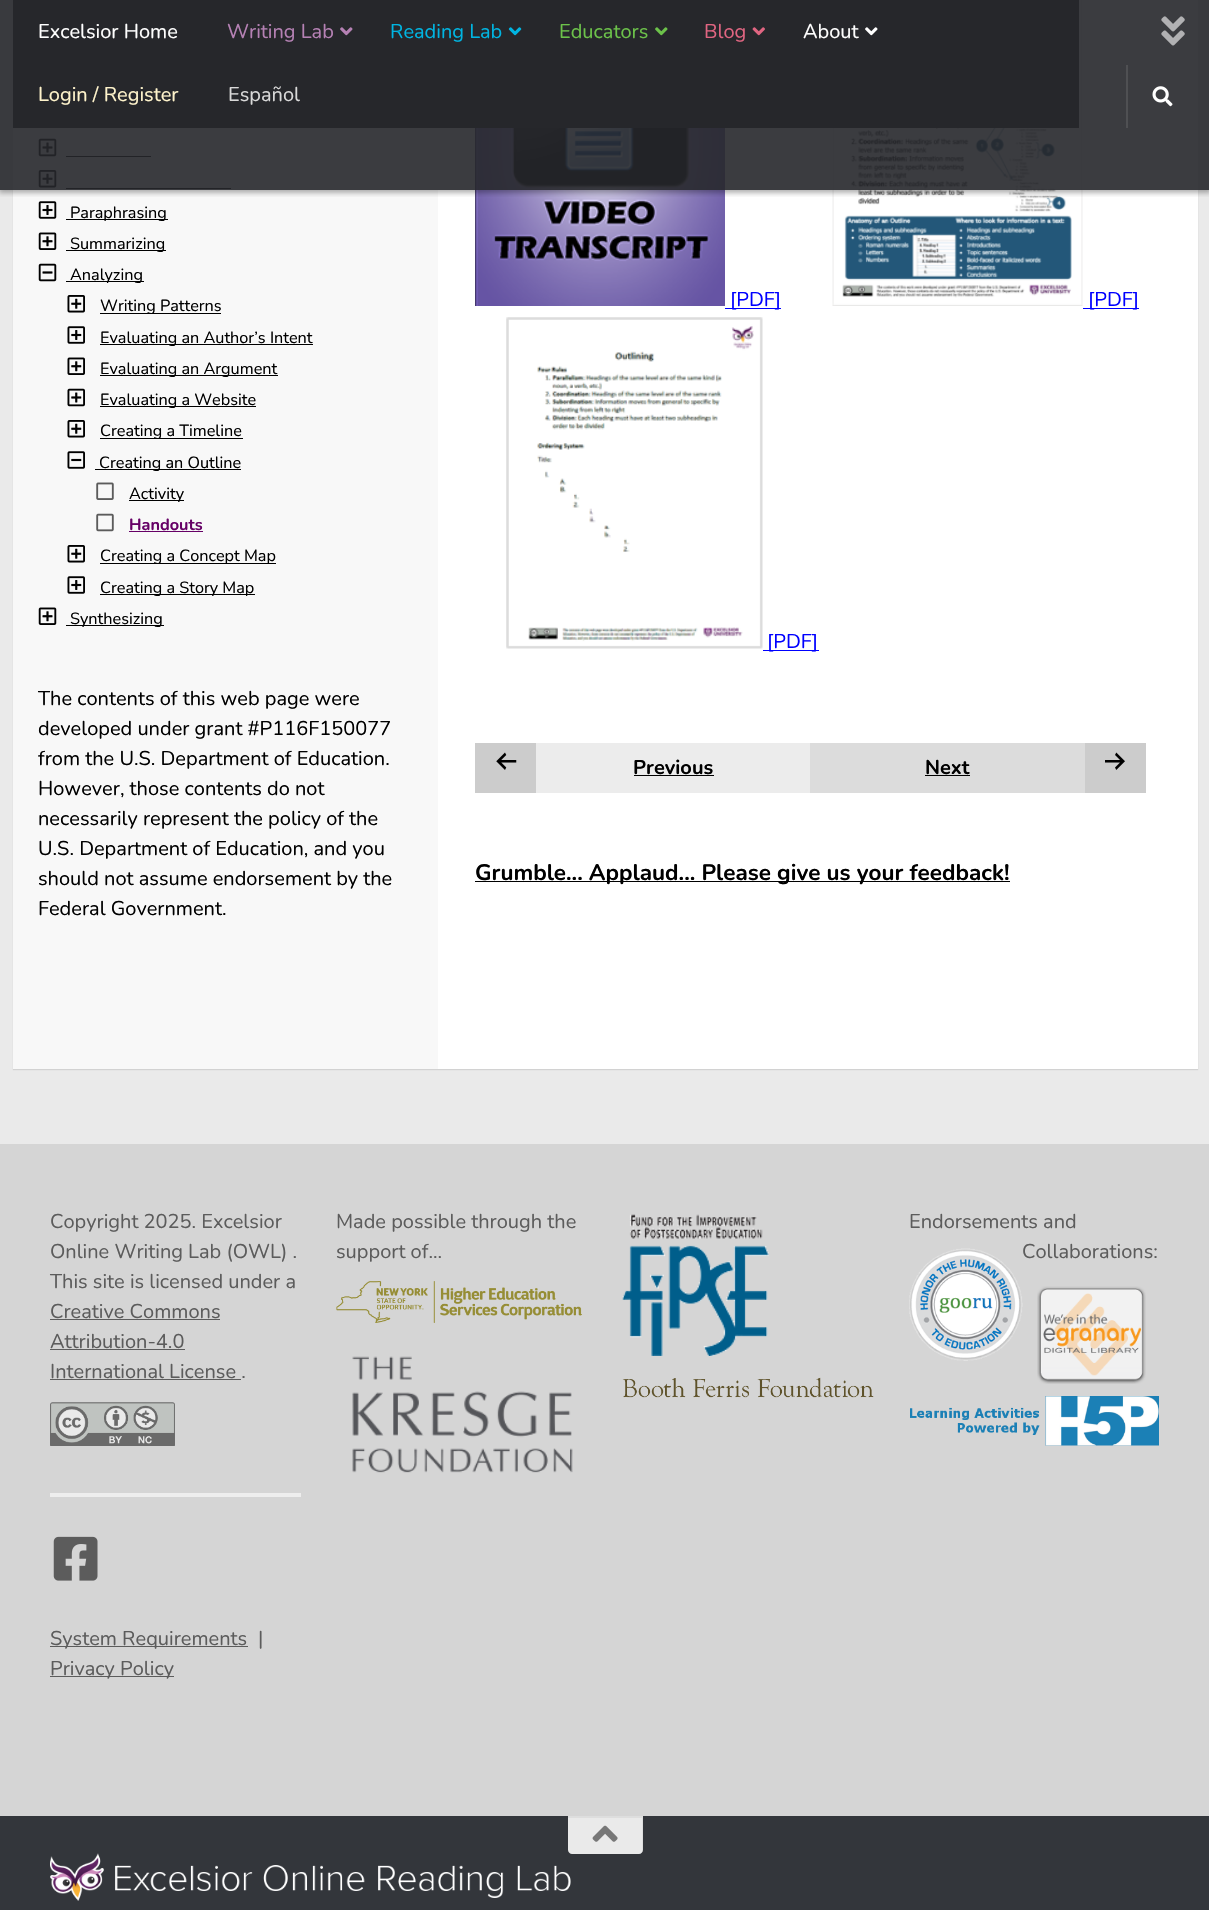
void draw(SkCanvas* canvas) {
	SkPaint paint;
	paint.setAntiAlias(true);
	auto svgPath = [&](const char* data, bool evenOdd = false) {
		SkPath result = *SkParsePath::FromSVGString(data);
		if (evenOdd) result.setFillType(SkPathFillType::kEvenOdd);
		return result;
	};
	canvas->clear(0xffeaeaea);
	paint.setColor(0x1a000000);
	paint.setMaskFilter(SkMaskFilter::MakeBlur(kNormal_SkBlurStyle, 0.5));
	canvas->drawRect(SkRect::MakeXYWH(13, -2, 1185, 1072), paint);
	paint.setMaskFilter(nullptr);
	paint.setColor(0xffffffff);
	canvas->drawRect(SkRect::MakeXYWH(438, 0, 760, 1069), paint);
	paint.setColor(0xfff8f8f8);
	canvas->drawRect(SkRect::MakeXYWH(13, 128, 425, 941), paint);
	canvas->drawImageRect(SkImages::DeferredFromEncodedData(SkData::MakeFromFileName("img8.png")), SkRect::MakeXYWH(38, 138, 19, 19), SkSamplingOptions());
	paint.setColor(0xff000000);
	canvas->drawRect(SkRect::MakeXYWH(66, 156, 85, 1), paint);
	canvas->drawImageRect(SkImages::DeferredFromEncodedData(SkData::MakeFromFileName("img9.png")), SkRect::MakeXYWH(38, 170, 19, 18), SkSamplingOptions());
	canvas->drawRect(SkRect::MakeXYWH(66, 188, 165, 1), paint);
	canvas->drawImageRect(SkImages::DeferredFromEncodedData(SkData::MakeFromFileName("img10.png")), SkRect::MakeXYWH(38, 201, 19, 18), SkSamplingOptions());
	canvas->drawImageRect(SkImages::DeferredFromEncodedData(SkData::MakeFromFileName("img20.png")), SkRect::MakeXYWH(475, 128, 250, 178), SkSamplingOptions());
	canvas->drawImageRect(SkImages::DeferredFromEncodedData(SkData::MakeFromFileName("img21.png")), SkRect::MakeXYWH(832, 0, 251, 306), SkSamplingOptions());
	canvas->save();
	canvas->clipRect(SkRect::MakeXYWH(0, 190, 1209, 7));
	paint.setColor(0x4d000000);
	paint.setMaskFilter(SkMaskFilter::MakeBlur(kNormal_SkBlurStyle, 2.5));
	canvas->drawRect(SkRect::MakeXYWH(-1, 0, 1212, 193), paint);
	paint.setMaskFilter(nullptr);
	canvas->restore();
	paint.setColor(0xe626272b);
	canvas->drawRect(SkRect::MakeXYWH(0, 0, 1209, 190), paint);
	paint.setColor(0xff26272b);
	canvas->drawRect(SkRect::MakeXYWH(13, 0, 1066, 128), paint);
	SkFont f1(fontMgr->matchFamilyStyle("Nunito", SkFontStyle::Normal()), 20);
	f1.setSubpixel(true);
	paint.setColor(0xffffffff);
	canvas->drawString("Excelsior Home", 38, 38, f1, paint);
	paint.setColor(0xffb581b4);
	canvas->drawString("Writing Lab", 227, 38, f1, paint);
	canvas->drawImageRect(SkImages::DeferredFromEncodedData(SkData::MakeFromFileName("img1.png")), SkRect::MakeXYWH(340, 27, 13, 9), SkSamplingOptions());
	paint.setColor(0xff00b5e2);
	canvas->drawString("Reading Lab", 390, 38, f1, paint);
	canvas->drawImageRect(SkImages::DeferredFromEncodedData(SkData::MakeFromFileName("img2.png")), SkRect::MakeXYWH(508, 27, 14, 9), SkSamplingOptions());
	paint.setColor(0xff6cc24a);
	canvas->drawString("Educators", 559, 38, f1, paint);
	canvas->drawImageRect(SkImages::DeferredFromEncodedData(SkData::MakeFromFileName("img3.png")), SkRect::MakeXYWH(655, 27, 13, 9), SkSamplingOptions());
	paint.setColor(0xffe06581);
	canvas->drawString("Blog", 704, 38, f1, paint);
	canvas->drawImageRect(SkImages::DeferredFromEncodedData(SkData::MakeFromFileName("img4.png")), SkRect::MakeXYWH(752, 27, 13, 9), SkSamplingOptions());
	paint.setColor(0xffffffff);
	canvas->drawString("About", 803, 38, f1, paint);
	canvas->drawImageRect(SkImages::DeferredFromEncodedData(SkData::MakeFromFileName("img5.png")), SkRect::MakeXYWH(865, 27, 13, 9), SkSamplingOptions());
	paint.setColor(0xfffef3cb);
	canvas->drawString("Login / Register", 38, 101, f1, paint);
	paint.setColor(0xffd9d9d9);
	canvas->drawString("Español", 228, 101, f1, paint);
	canvas->drawImageRect(SkImages::DeferredFromEncodedData(SkData::MakeFromFileName("img6.png")), SkRect::MakeXYWH(1161, 16, 24, 30), SkSamplingOptions());
	paint.setColor(0xff4f5053);
	canvas->drawPath(svgPath("M1126 65V128H1196H1128V65Z"), paint);
	canvas->drawImageRect(SkImages::DeferredFromEncodedData(SkData::MakeFromFileName("img7.png")), SkRect::MakeXYWH(1152, 86, 21, 21), SkSamplingOptions());
	paint.setColor(0xff000000);
	canvas->drawRect(SkRect::MakeXYWH(66, 219, 102, 1), paint);
	SkFont f2(fontMgr->matchFamilyStyle("Nunito", SkFontStyle::Normal()), 16.25);
	f2.setSubpixel(true);
	canvas->drawString("Paraphrasing", 70, 218, f2, paint);
	canvas->drawImageRect(SkImages::DeferredFromEncodedData(SkData::MakeFromFileName("img11.png")), SkRect::MakeXYWH(38, 232, 19, 18), SkSamplingOptions());
	canvas->drawRect(SkRect::MakeXYWH(66, 250, 100, 1), paint);
	canvas->drawString("Summarizing", 70, 249, f2, paint);
	canvas->drawImageRect(SkImages::DeferredFromEncodedData(SkData::MakeFromFileName("img12.png")), SkRect::MakeXYWH(38, 263, 19, 19), SkSamplingOptions());
	canvas->drawRect(SkRect::MakeXYWH(66, 281, 78, 1), paint);
	canvas->drawString("Analyzing", 70, 280, f2, paint);
	canvas->drawImageRect(SkImages::DeferredFromEncodedData(SkData::MakeFromFileName("img13.png")), SkRect::MakeXYWH(67, 295, 18, 18), SkSamplingOptions());
	canvas->drawRect(SkRect::MakeXYWH(100, 313, 121, 1), paint);
	canvas->drawString("Writing Patterns", 100, 311, f2, paint);
	canvas->drawImageRect(SkImages::DeferredFromEncodedData(SkData::MakeFromFileName("img14.png")), SkRect::MakeXYWH(67, 326, 18, 18), SkSamplingOptions());
	canvas->drawRect(SkRect::MakeXYWH(100, 344, 213, 1), paint);
	canvas->drawString("Evaluating an Author’s Intent", 100, 343, f2, paint);
	canvas->drawImageRect(SkImages::DeferredFromEncodedData(SkData::MakeFromFileName("img15.png")), SkRect::MakeXYWH(67, 357, 18, 18), SkSamplingOptions());
	canvas->drawRect(SkRect::MakeXYWH(100, 375, 178, 1), paint);
	canvas->drawString("Evaluating an Argument", 100, 374, f2, paint);
	canvas->drawImageRect(SkImages::DeferredFromEncodedData(SkData::MakeFromFileName("img16.png")), SkRect::MakeXYWH(67, 388, 18, 19), SkSamplingOptions());
	canvas->drawRect(SkRect::MakeXYWH(100, 406, 156, 1), paint);
	canvas->drawString("Evaluating a Website", 100, 405, f2, paint);
	canvas->drawImageRect(SkImages::DeferredFromEncodedData(SkData::MakeFromFileName("img13.png")), SkRect::MakeXYWH(67, 420, 18, 18), SkSamplingOptions());
	canvas->drawRect(SkRect::MakeXYWH(100, 438, 143, 1), paint);
	canvas->drawString("Creating a Timeline", 100, 436, f2, paint);
	canvas->drawImageRect(SkImages::DeferredFromEncodedData(SkData::MakeFromFileName("img17.png")), SkRect::MakeXYWH(67, 451, 18, 18), SkSamplingOptions());
	canvas->drawRect(SkRect::MakeXYWH(95, 469, 146, 1), paint);
	canvas->drawString("Creating an Outline", 99, 468, f2, paint);
	canvas->drawImageRect(SkImages::DeferredFromEncodedData(SkData::MakeFromFileName("img18.png")), SkRect::MakeXYWH(96, 482, 18, 18), SkSamplingOptions());
	canvas->drawRect(SkRect::MakeXYWH(129, 500, 55, 1), paint);
	canvas->drawString("Activity", 129, 499, f2, paint);
	canvas->drawImageRect(SkImages::DeferredFromEncodedData(SkData::MakeFromFileName("img19.png")), SkRect::MakeXYWH(96, 513, 18, 19), SkSamplingOptions());
	SkFont f3(fontMgr->matchFamilyStyle("Nunito", SkFontStyle::Bold()), 16.25);
	f3.setSubpixel(true);
	paint.setColor(0xff660066);
	canvas->drawString("Handouts", 129, 530, f3, paint);
	canvas->drawRect(SkRect::MakeXYWH(129, 531, 74, 1), paint);
	canvas->drawImageRect(SkImages::DeferredFromEncodedData(SkData::MakeFromFileName("img13.png")), SkRect::MakeXYWH(67, 545, 18, 18), SkSamplingOptions());
	paint.setColor(0xff000000);
	canvas->drawRect(SkRect::MakeXYWH(100, 563, 176, 1), paint);
	canvas->drawString("Creating a Concept Map", 100, 561, f2, paint);
	canvas->drawImageRect(SkImages::DeferredFromEncodedData(SkData::MakeFromFileName("img14.png")), SkRect::MakeXYWH(67, 576, 18, 18), SkSamplingOptions());
	canvas->drawRect(SkRect::MakeXYWH(100, 594, 155, 1), paint);
	canvas->drawString("Creating a Story Map", 100, 593, f2, paint);
	canvas->drawImageRect(SkImages::DeferredFromEncodedData(SkData::MakeFromFileName("img11.png")), SkRect::MakeXYWH(38, 607, 19, 18), SkSamplingOptions());
	canvas->drawRect(SkRect::MakeXYWH(66, 625, 98, 1), paint);
	canvas->drawString("Synthesizing", 70, 624, f2, paint);
	canvas->drawString("The contents of this web page were", 38, 705, f1, paint);
	canvas->drawString("developed under grant #P116F150077", 38, 735, f1, paint);
	canvas->drawString("from the U.S. Department of Education.", 38, 765, f1, paint);
	canvas->drawString("However, those contents do not", 38, 795, f1, paint);
	canvas->drawString("necessarily represent the policy of the", 38, 825, f1, paint);
	canvas->drawString("U.S. Department of Education, and you", 38, 855, f1, paint);
	canvas->drawString("should not assume endorsement by the", 38, 885, f1, paint);
	canvas->drawString("Federal Government.", 38, 915, f1, paint);
	paint.setColor(0xff0000ff);
	canvas->drawRect(SkRect::MakeXYWH(725, 308, 56, 1), paint);
	canvas->drawString("[PDF]", 730, 306, f1, paint);
	canvas->drawRect(SkRect::MakeXYWH(1083, 308, 56, 1), paint);
	canvas->drawString("[PDF]", 1088, 306, f1, paint);
	canvas->drawImageRect(SkImages::DeferredFromEncodedData(SkData::MakeFromFileName("img22.png")), SkRect::MakeXYWH(506, 317, 257, 332), SkSamplingOptions());
	canvas->drawRect(SkRect::MakeXYWH(763, 650, 56, 1), paint);
	canvas->drawString("[PDF]", 767, 648, f1, paint);
	paint.setColor(0xffcccccc);
	canvas->drawRect(SkRect::MakeXYWH(475, 743, 61, 50), paint);
	canvas->drawImageRect(SkImages::DeferredFromEncodedData(SkData::MakeFromFileName("img23.png")), SkRect::MakeXYWH(496, 752, 21, 18), SkSamplingOptions());
	paint.setColor(0xffececec);
	canvas->drawRect(SkRect::MakeXYWH(536, 743, 274, 50), paint);
	SkFont f4(fontMgr->matchFamilyStyle("Nunito", SkFontStyle::Bold()), 20);
	f4.setSubpixel(true);
	paint.setColor(0xff000000);
	canvas->drawString("Previous", 633, 774, f4, paint);
	canvas->drawRect(SkRect::MakeXYWH(634, 775, 80, 1), paint);
	paint.setColor(0xffdcdcdc);
	canvas->drawRect(SkRect::MakeXYWH(810, 743, 275, 50), paint);
	paint.setColor(0xff000000);
	canvas->drawString("Next", 925, 774, f4, paint);
	canvas->drawRect(SkRect::MakeXYWH(925, 775, 45, 1), paint);
	paint.setColor(0xffcccccc);
	canvas->drawRect(SkRect::MakeXYWH(1085, 743, 61, 50), paint);
	canvas->drawImageRect(SkImages::DeferredFromEncodedData(SkData::MakeFromFileName("img24.png")), SkRect::MakeXYWH(1105, 752, 20, 18), SkSamplingOptions());
	paint.setColor(0xff000000);
	canvas->drawRect(SkRect::MakeXYWH(475, 881, 535, 1), paint);
	SkFont f5(fontMgr->matchFamilyStyle("Nunito", SkFontStyle::Bold()), 22.5);
	f5.setSubpixel(true);
	canvas->drawString("Grumble... Applaud... Please give us your feedback!", 475, 880, f5, paint);
	paint.setColor(0xffd5d5d5);
	canvas->drawRect(SkRect::MakeXYWH(0, 1144, 1209, 672), paint);
	paint.setColor(0xff5c5c5c);
	canvas->drawString("Copyright 2025. Excelsior", 50, 1228, f1, paint);
	canvas->drawString("Online Writing Lab (OWL) .", 50, 1258, f1, paint);
	canvas->drawString("This site is licensed under a", 50, 1288, f1, paint);
	canvas->drawString("Creative Commons", 50, 1318, f1, paint);
	canvas->drawRect(SkRect::MakeXYWH(50, 1319, 170, 1), paint);
	canvas->drawString("Attribution-4.0", 50, 1348, f1, paint);
	canvas->drawRect(SkRect::MakeXYWH(50, 1349, 135, 1), paint);
	canvas->drawString("International License .", 50, 1378, f1, paint);
	canvas->drawRect(SkRect::MakeXYWH(50, 1379, 191, 1), paint);
	canvas->drawImageRect(SkImages::DeferredFromEncodedData(SkData::MakeFromFileName("img25.png")), SkRect::MakeXYWH(50, 1402, 125, 44), SkSamplingOptions());
	paint.setColor(0xffeeeeee);
	canvas->drawRect(SkRect::MakeXYWH(50, 1493, 251, 4), paint);
	canvas->drawImageRect(SkImages::DeferredFromEncodedData(SkData::MakeFromFileName("img26.png")), SkRect::MakeXYWH(53, 1536, 45, 45), SkSamplingOptions());
	paint.setColor(0xff5c5c5c);
	canvas->drawRect(SkRect::MakeXYWH(50, 1646, 198, 1), paint);
	canvas->drawString("System Requirements", 50, 1645, f1, paint);
	canvas->drawString("|", 258, 1645, f1, paint);
	canvas->drawRect(SkRect::MakeXYWH(50, 1676, 124, 1), paint);
	canvas->drawString("Privacy Policy", 50, 1675, f1, paint);
	canvas->drawString("Made possible through the", 336, 1228, f1, paint);
	canvas->drawString("support of...", 336, 1258, f1, paint);
	canvas->drawImageRect(SkImages::DeferredFromEncodedData(SkData::MakeFromFileName("img27.png")), SkRect::MakeXYWH(336, 1281, 246, 42), SkSamplingOptions());
	canvas->drawImageRect(SkImages::DeferredFromEncodedData(SkData::MakeFromFileName("img28.png")), SkRect::MakeXYWH(352, 1356, 221, 117), SkSamplingOptions());
	canvas->drawImageRect(SkImages::DeferredFromEncodedData(SkData::MakeFromFileName("img29.png")), SkRect::MakeXYWH(622, 1214, 147, 142), SkSamplingOptions());
	canvas->drawImageRect(SkImages::DeferredFromEncodedData(SkData::MakeFromFileName("img30.png")), SkRect::MakeXYWH(622, 1377, 252, 21), SkSamplingOptions());
	canvas->drawString("Endorsements and", 909, 1228, f1, paint);
	canvas->drawImageRect(SkImages::DeferredFromEncodedData(SkData::MakeFromFileName("img31.png")), SkRect::MakeXYWH(909, 1248, 114, 113), SkSamplingOptions());
	canvas->drawString("Collaborations:", 1022, 1258, f1, paint);
	canvas->drawImageRect(SkImages::DeferredFromEncodedData(SkData::MakeFromFileName("img32.png")), SkRect::MakeXYWH(1037, 1286, 109, 98), SkSamplingOptions());
	canvas->drawImageRect(SkImages::DeferredFromEncodedData(SkData::MakeFromFileName("img33.png")), SkRect::MakeXYWH(910, 1396, 249, 50), SkSamplingOptions());
	paint.setColor(0xff33363b);
	canvas->drawRect(SkRect::MakeXYWH(0, 1816, 1209, 94), paint);
	paint.setColor(0xffeaeaea);
	canvas->drawPath(svgPath("M568 1816H643V1850C643 1852 641 1854 639 1854H572C570 1854 568 1852 568 1850Z"), paint);
	paint.setColor(0x0d000000);
	canvas->drawPath(svgPath("M568 1818H642V1853C642 1852 643 1851 643 1850V1816H568Z"), paint);
	canvas->drawImageRect(SkImages::DeferredFromEncodedData(SkData::MakeFromFileName("img34.png")), SkRect::MakeXYWH(592, 1825, 26, 17), SkSamplingOptions());
	canvas->drawImageRect(SkImages::DeferredFromEncodedData(SkData::MakeFromFileName("img35.png")), SkRect::MakeXYWH(50, 1853, 521, 48), SkSamplingOptions());
}
